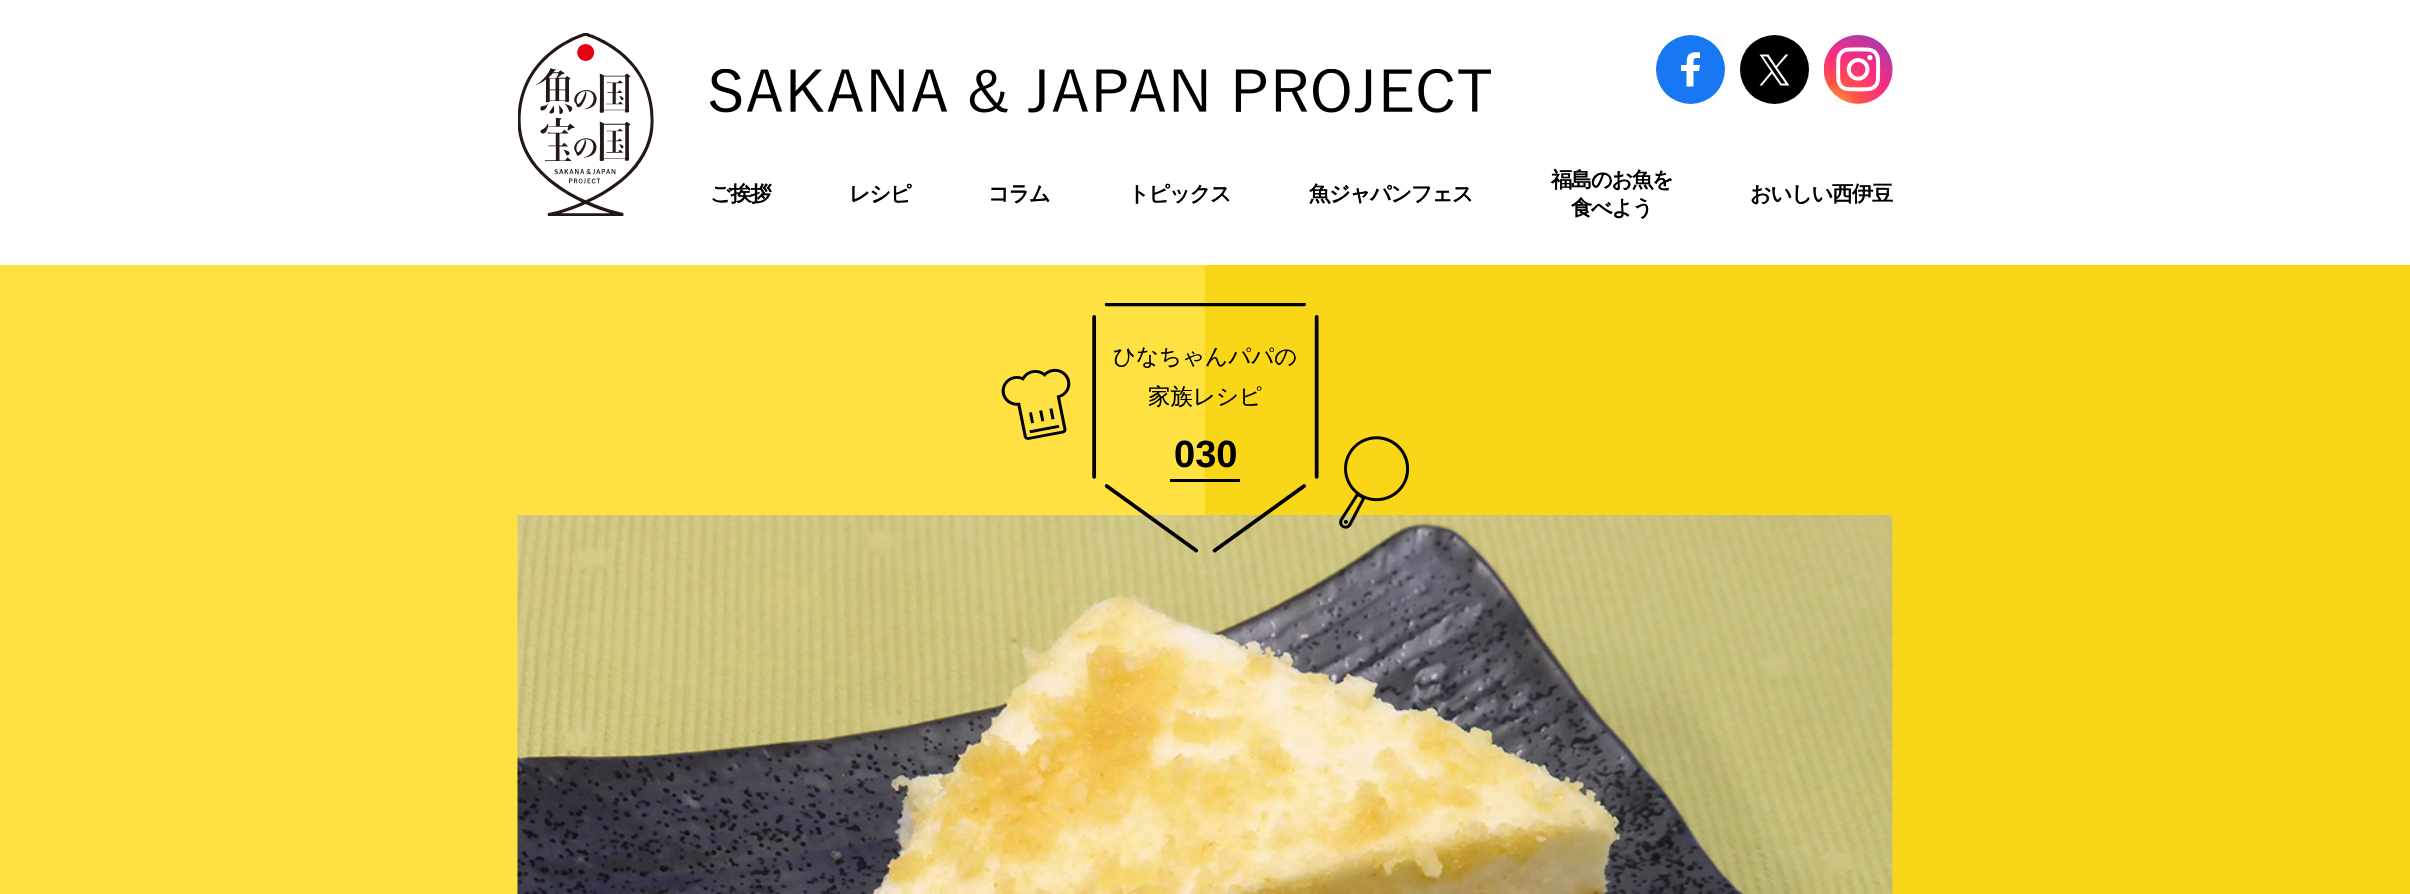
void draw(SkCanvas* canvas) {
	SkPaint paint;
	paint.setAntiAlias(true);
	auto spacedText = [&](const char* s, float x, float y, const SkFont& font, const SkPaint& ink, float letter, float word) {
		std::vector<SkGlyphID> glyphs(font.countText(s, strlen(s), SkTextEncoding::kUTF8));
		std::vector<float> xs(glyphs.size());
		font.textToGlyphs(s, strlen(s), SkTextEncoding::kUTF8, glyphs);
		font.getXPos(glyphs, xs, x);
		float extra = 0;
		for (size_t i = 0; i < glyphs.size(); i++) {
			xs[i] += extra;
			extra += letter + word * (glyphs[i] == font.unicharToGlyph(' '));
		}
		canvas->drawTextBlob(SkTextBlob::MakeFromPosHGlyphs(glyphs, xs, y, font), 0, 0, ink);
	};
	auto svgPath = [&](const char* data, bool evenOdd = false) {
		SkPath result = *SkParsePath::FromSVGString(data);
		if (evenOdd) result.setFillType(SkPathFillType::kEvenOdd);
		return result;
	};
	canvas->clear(0xffffffff);
	canvas->drawImageRect(SkImages::DeferredFromEncodedData(SkData::MakeFromFileName("img1.png")), SkRect::MakeXYWH(518, 33, 136, 183), SkSamplingOptions());
	canvas->drawImageRect(SkImages::DeferredFromEncodedData(SkData::MakeFromFileName("img2.png")), SkRect::MakeXYWH(710, 69, 781, 44), SkSamplingOptions());
	paint.setColor(0xff1877f2);
	canvas->drawCircle(1690.5, 69.5, 34.5, paint);
	paint.setColor(0xffffffff);
	canvas->drawPath(svgPath("M1693.5 86.5V71H1699L1700 65H1693.5C1693.5 58 1693 58 1700 58V52.5C1695 52 1688 52 1687 58.5L1686.5 65H1681V71H1686.5V86.5Z"), paint);
	paint.setColor(0xff000000);
	canvas->drawCircle(1774.5, 69.5, 34.5, paint);
	paint.setColor(0xffffffff);
	canvas->drawPath(svgPath("M1777 67.5L1788.5 54.5H1785.5L1776 66L1768.5 54.5H1759.5L1771 71.5L1759.5 85.5H1762L1772 73.5L1780.5 85.5H1789.5ZM1773.5 72L1763 56.5H1767L1785.5 83.5H1781.5Z"), paint);
	canvas->drawImageRect(SkImages::DeferredFromEncodedData(SkData::MakeFromFileName("img3.png")), SkRect::MakeXYWH(1824, 35, 69, 69), SkSamplingOptions());
	SkFont f1(fontMgr->matchFamilyStyle("WenQuanYi Zen Hei", SkFontStyle::Bold()), 21.25);
	f1.setSubpixel(true);
	paint.setColor(0xff000000);
	spacedText("ご挨拶", 710, 201, f1, paint, -1.25, 0);
	spacedText("レシピ", 849, 201, f1, paint, -1.25, 0);
	spacedText("コラム", 988, 201, f1, paint, -1.25, 0);
	spacedText("トピックス", 1128, 201, f1, paint, -1.25, 0);
	spacedText("魚ジャパンフェス", 1309, 201, f1, paint, -1.25, 0);
	spacedText("福島のお魚を", 1551, 187, f1, paint, -1.25, 0);
	spacedText("食べよう", 1571, 215, f1, paint, -1.25, 0);
	spacedText("おいしい西伊豆", 1750, 201, f1, paint, -1.25, 0);
	paint.setColor(0xffffe242);
	canvas->drawRect(SkRect::MakeXYWH(0, 265, 1205, 629), paint);
	paint.setColor(0xfff9d617);
	canvas->drawRect(SkRect::MakeXYWH(1205, 265, 1205, 629), paint);
	canvas->drawImageRect(SkImages::DeferredFromEncodedData(SkData::MakeFromFileName("img5.png")), SkRect::MakeXYWH(517, 515, 1376, 379), SkSamplingOptions());
	canvas->drawImageRect(SkImages::DeferredFromEncodedData(SkData::MakeFromFileName("img4.png")), SkRect::MakeXYWH(1001, 303, 408, 250), SkSamplingOptions());
	SkFont f2(fontMgr->matchFamilyStyle("WenQuanYi Zen Hei", SkFontStyle(500, SkFontStyle::kNormal_Width, SkFontStyle::kUpright_Slant)), 22.5);
	f2.setSubpixel(true);
	paint.setColor(0xff000000);
	canvas->drawString("ひなちゃんパパの", 1113, 364, f2, paint);
	canvas->drawString("家族レシピ", 1148, 404, f2, paint);
	SkFont f3(fontMgr->matchFamilyStyle("Liberation Sans", SkFontStyle::Bold()), 38);
	f3.setSubpixel(true);
	canvas->drawString("030", 1174, 467, f3, paint);
	canvas->drawRect(SkRect::MakeXYWH(1170, 479, 70, 3), paint);
}
